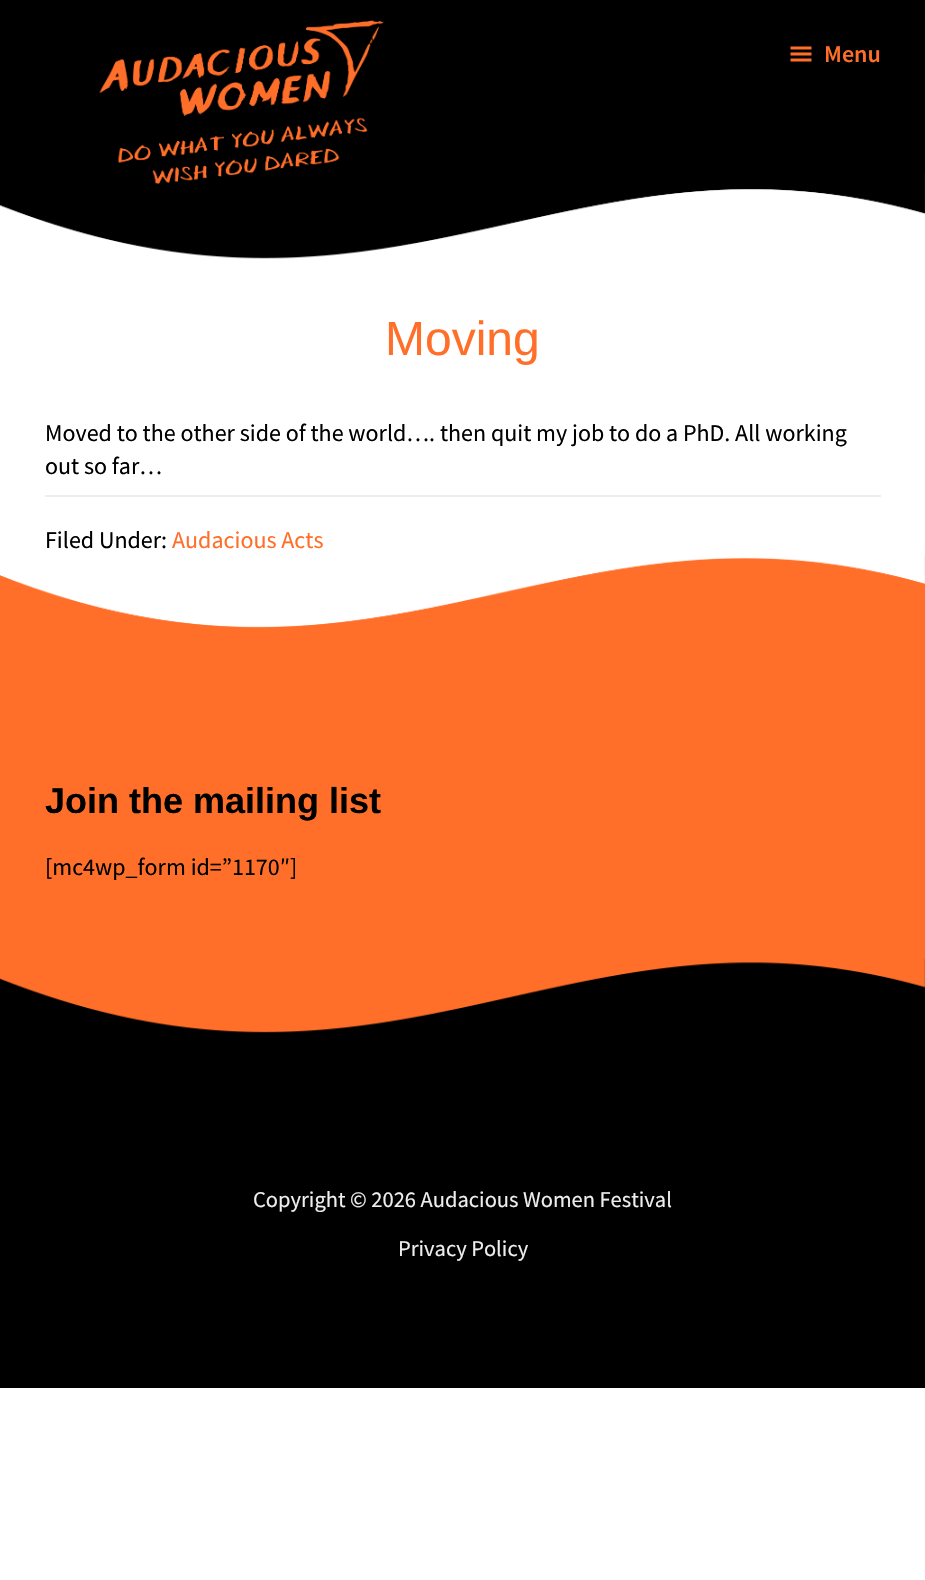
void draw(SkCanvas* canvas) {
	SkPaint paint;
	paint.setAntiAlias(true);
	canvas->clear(0xffffffff);
	canvas->drawImageRect(SkImages::DeferredFromEncodedData(SkData::MakeFromFileName("img1.png")), SkRect::MakeXYWH(0, 0, 925, 259), SkSamplingOptions());
	canvas->drawImageRect(SkImages::DeferredFromEncodedData(SkData::MakeFromFileName("img2.png")), SkRect::MakeXYWH(99, 20, 285, 164), SkSamplingOptions());
	canvas->drawImageRect(SkImages::DeferredFromEncodedData(SkData::MakeFromFileName("img3.png")), SkRect::MakeXYWH(790, 46, 22, 16), SkSamplingOptions());
	SkFont f1(fontMgr->matchFamilyStyle("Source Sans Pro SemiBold", SkFontStyle(600, SkFontStyle::kNormal_Width, SkFontStyle::kUpright_Slant)), 24);
	f1.setSubpixel(true);
	paint.setColor(0xffff6f29);
	canvas->drawString("Menu", 824, 62, f1, paint);
	SkFont f2(fontMgr->matchFamilyStyle("Liberation Sans", SkFontStyle::Normal()), 48);
	f2.setSubpixel(true);
	canvas->drawString("Moving", 385, 355, f2, paint);
	SkFont f3(fontMgr->matchFamilyStyle("Source Sans Pro", SkFontStyle::Normal()), 24);
	f3.setSubpixel(true);
	paint.setColor(0xff000000);
	canvas->drawString("Moved to the other side of the world…. then quit my job to do a PhD. All working", 45, 441, f3, paint);
	canvas->drawString("out so far…", 45, 474, f3, paint);
	paint.setColor(0xffeeeeee);
	canvas->drawRect(SkRect::MakeXYWH(45, 495, 836, 2), paint);
	paint.setColor(0xff000000);
	canvas->drawString("Filed Under:", 45, 548, f3, paint);
	paint.setColor(0xffff6f29);
	canvas->drawString("Audacious Acts", 172, 548, f3, paint);
	canvas->drawRect(SkRect::MakeXYWH(0, 555, 925, 404), paint);
	canvas->drawImageRect(SkImages::DeferredFromEncodedData(SkData::MakeFromFileName("img4.png")), SkRect::MakeXYWH(0, 555, 925, 73), SkSamplingOptions());
	SkFont f4(fontMgr->matchFamilyStyle("Liberation Sans", SkFontStyle::Bold()), 36);
	f4.setSubpixel(true);
	paint.setColor(0xff000000);
	canvas->drawString("Join the mailing list", 45, 813, f4, paint);
	canvas->drawString("[mc4wp_form id=”1170″]", 45, 875, f3, paint);
	canvas->drawRect(SkRect::MakeXYWH(0, 959, 925, 429), paint);
	canvas->drawImageRect(SkImages::DeferredFromEncodedData(SkData::MakeFromFileName("img5.png")), SkRect::MakeXYWH(0, 959, 925, 74), SkSamplingOptions());
	SkFont f5(fontMgr->matchFamilyStyle("Source Sans Pro", SkFontStyle::Normal()), 22.5);
	f5.setSubpixel(true);
	paint.setColor(0xffeeeeee);
	canvas->drawString("Copyright © 2026 Audacious Women Festival", 253, 1207, f5, paint);
	canvas->drawString("Privacy Policy", 398, 1256, f5, paint);
}
